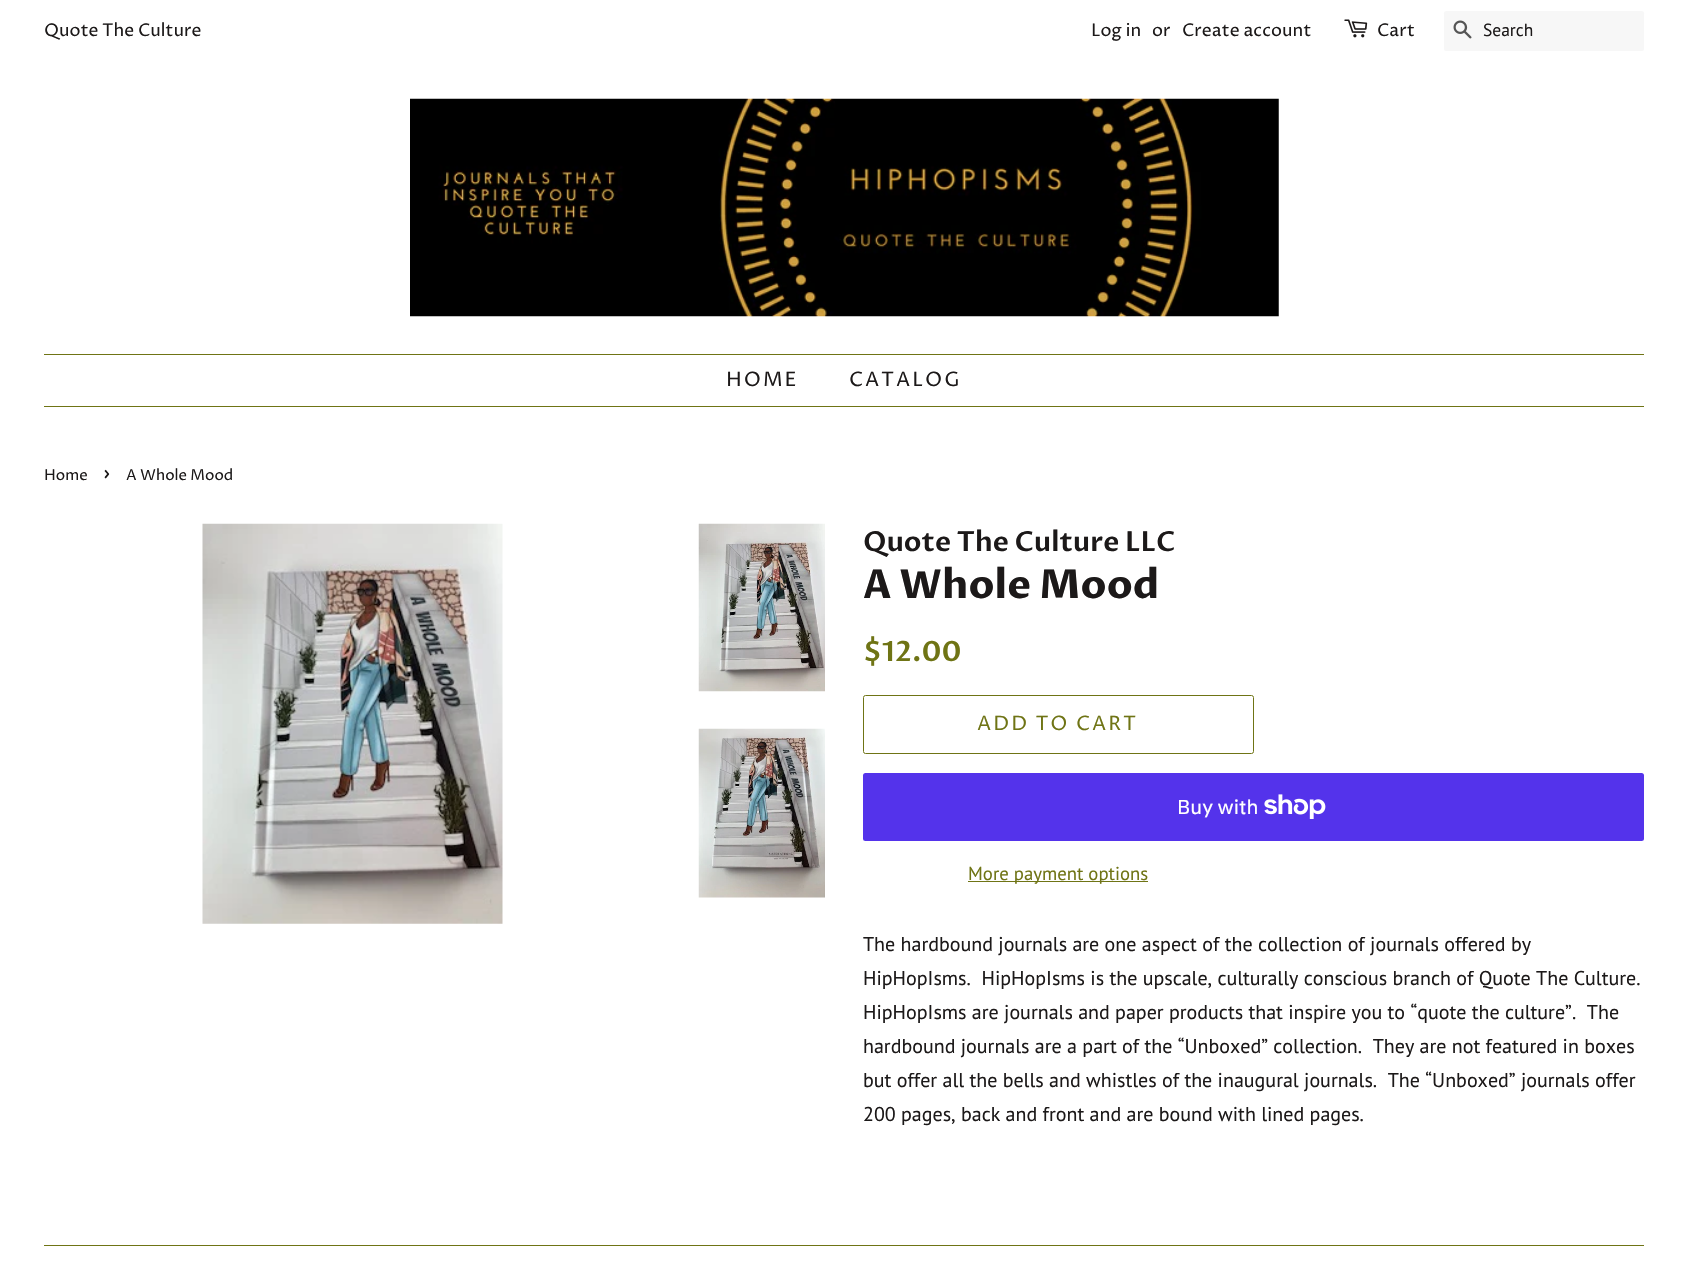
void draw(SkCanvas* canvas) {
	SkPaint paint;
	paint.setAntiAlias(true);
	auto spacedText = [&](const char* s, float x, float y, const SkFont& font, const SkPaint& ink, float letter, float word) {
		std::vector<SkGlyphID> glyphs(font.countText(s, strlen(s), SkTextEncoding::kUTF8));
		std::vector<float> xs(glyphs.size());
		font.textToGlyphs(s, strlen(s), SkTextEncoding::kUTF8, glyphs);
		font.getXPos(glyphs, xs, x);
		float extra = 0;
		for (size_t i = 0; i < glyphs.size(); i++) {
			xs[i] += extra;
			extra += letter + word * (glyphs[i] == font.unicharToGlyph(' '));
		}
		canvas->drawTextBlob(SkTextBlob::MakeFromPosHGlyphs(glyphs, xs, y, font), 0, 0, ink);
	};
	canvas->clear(0xffffffff);
	SkFont f1(fontMgr->matchFamilyStyle("Proza Libre", SkFontStyle::Normal()), 17.5);
	f1.setSubpixel(true);
	paint.setColor(0xff1c1919);
	canvas->drawString("Quote The Culture", 44, 36, f1, paint);
	canvas->drawString("Log in", 1091, 36, f1, paint);
	canvas->drawString("or", 1152, 36, f1, paint);
	canvas->drawString("Create account", 1182, 36, f1, paint);
	canvas->drawImageRect(SkImages::DeferredFromEncodedData(SkData::MakeFromFileName("img1.png")), SkRect::MakeXYWH(1344, 19, 24, 19), SkSamplingOptions());
	canvas->drawString("Cart", 1377, 36, f1, paint);
	paint.setColor(0xfff7f7f7);
	canvas->drawRoundRect(SkRect::MakeXYWH(1444, 11, 200, 40), 2.5, 2.5, paint);
	canvas->drawImageRect(SkImages::DeferredFromEncodedData(SkData::MakeFromFileName("img2.png")), SkRect::MakeXYWH(1453, 20, 19, 19), SkSamplingOptions());
	SkFont f2(fontMgr->matchFamilyStyle("PT Sans", SkFontStyle::Normal()), 17.5);
	f2.setSubpixel(true);
	paint.setColor(0xff1c1919);
	canvas->drawString("Search", 1483, 36, f2, paint);
	canvas->drawImageRect(SkImages::DeferredFromEncodedData(SkData::MakeFromFileName("img3.png")), SkRect::MakeXYWH(410, 98, 869, 219), SkSamplingOptions());
	paint.setColor(0xff6f7415);
	canvas->drawRect(SkRect::MakeXYWH(44, 354, 1600, 1), paint);
	canvas->drawRect(SkRect::MakeXYWH(44, 406, 1600, 1), paint);
	SkFont f3(fontMgr->matchFamilyStyle("Proza Libre", SkFontStyle::Normal()), 20);
	f3.setSubpixel(true);
	paint.setColor(0xff1c1919);
	spacedText("HOME", 726, 386, f3, paint, 2, 0);
	spacedText("CATALOG", 849, 386, f3, paint, 2, 0);
	SkFont f4(fontMgr->matchFamilyStyle("Proza Libre", SkFontStyle::Normal()), 15);
	f4.setSubpixel(true);
	canvas->drawString("Home", 44, 480, f4, paint);
	SkFont f5(fontMgr->matchFamilyStyle("Proza Libre", SkFontStyle::Normal()), 21);
	f5.setSubpixel(true);
	canvas->drawString("›", 103, 480, f5, paint);
	canvas->drawString("A Whole Mood", 126, 480, f4, paint);
	canvas->drawImageRect(SkImages::DeferredFromEncodedData(SkData::MakeFromFileName("img4.png")), SkRect::MakeXYWH(202, 523, 301, 401), SkSamplingOptions());
	canvas->drawImageRect(SkImages::DeferredFromEncodedData(SkData::MakeFromFileName("img5.png")), SkRect::MakeXYWH(698, 523, 127, 169), SkSamplingOptions());
	canvas->drawImageRect(SkImages::DeferredFromEncodedData(SkData::MakeFromFileName("img6.png")), SkRect::MakeXYWH(698, 728, 127, 170), SkSamplingOptions());
	SkFont f6(fontMgr->matchFamilyStyle("Proza Libre", SkFontStyle(600, SkFontStyle::kNormal_Width, SkFontStyle::kUpright_Slant)), 27.5);
	f6.setSubpixel(true);
	canvas->drawString("Quote The Culture LLC", 863, 551, f6, paint);
	SkFont f7(fontMgr->matchFamilyStyle("Proza Libre", SkFontStyle::Bold()), 40);
	f7.setSubpixel(true);
	canvas->drawString("A Whole Mood", 863, 598, f7, paint);
	SkFont f8(fontMgr->matchFamilyStyle("Proza Libre", SkFontStyle(600, SkFontStyle::kNormal_Width, SkFontStyle::kUpright_Slant)), 28);
	f8.setSubpixel(true);
	paint.setColor(0xff6f7415);
	canvas->drawString("$12.00", 863, 661, f8, paint);
	paint.setStroke(true);
	paint.setStrokeWidth(1);
	canvas->drawRoundRect(SkRect::MakeXYWH(863.5, 695.5, 390, 58), 2, 2, paint);
	paint.setStroke(false);
	spacedText("ADD TO CART", 977, 730, f3, paint, 2, 0);
	paint.setColor(0xff5433eb);
	canvas->drawRoundRect(SkRect::MakeXYWH(863, 773, 781, 68), 2.5, 2.5, paint);
	SkFont f9(fontMgr->matchFamilyStyle("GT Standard", SkFontStyle::Normal()), 20);
	f9.setSubpixel(true);
	paint.setColor(0xffffffff);
	canvas->drawString("Buy with", 1177, 814, f9, paint);
	canvas->drawImageRect(SkImages::DeferredFromEncodedData(SkData::MakeFromFileName("img7.png")), SkRect::MakeXYWH(1264, 794, 62, 25), SkSamplingOptions());
	paint.setColor(0xff6f7415);
	canvas->drawRect(SkRect::MakeXYWH(968, 881, 180, 1), paint);
	SkFont f10(fontMgr->matchFamilyStyle("PT Sans", SkFontStyle::Normal()), 18.75);
	f10.setSubpixel(true);
	canvas->drawString("More payment options", 968, 880, f10, paint);
	SkFont f11(fontMgr->matchFamilyStyle("PT Sans", SkFontStyle::Normal()), 20);
	f11.setSubpixel(true);
	paint.setColor(0xff1c1919);
	canvas->drawString("The hardbound journals are one aspect of the collection of journals offered by", 863, 951, f11, paint);
	canvas->drawString("HipHopIsms.  HipHopIsms is the upscale, culturally conscious branch of Quote The Culture.", 863, 985, f11, paint);
	canvas->drawString("HipHopIsms are journals and paper products that inspire you to “quote the culture”.  The", 863, 1019, f11, paint);
	canvas->drawString("hardbound journals are a part of the “Unboxed” collection.  They are not featured in boxes", 863, 1053, f11, paint);
	canvas->drawString("but offer all the bells and whistles of the inaugural journals.  The “Unboxed” journals offer", 863, 1087, f11, paint);
	canvas->drawString("200 pages, back and front and are bound with lined pages.", 863, 1121, f11, paint);
	paint.setColor(0xff6f7415);
	canvas->drawRect(SkRect::MakeXYWH(44, 1245, 1600, 1), paint);
}
